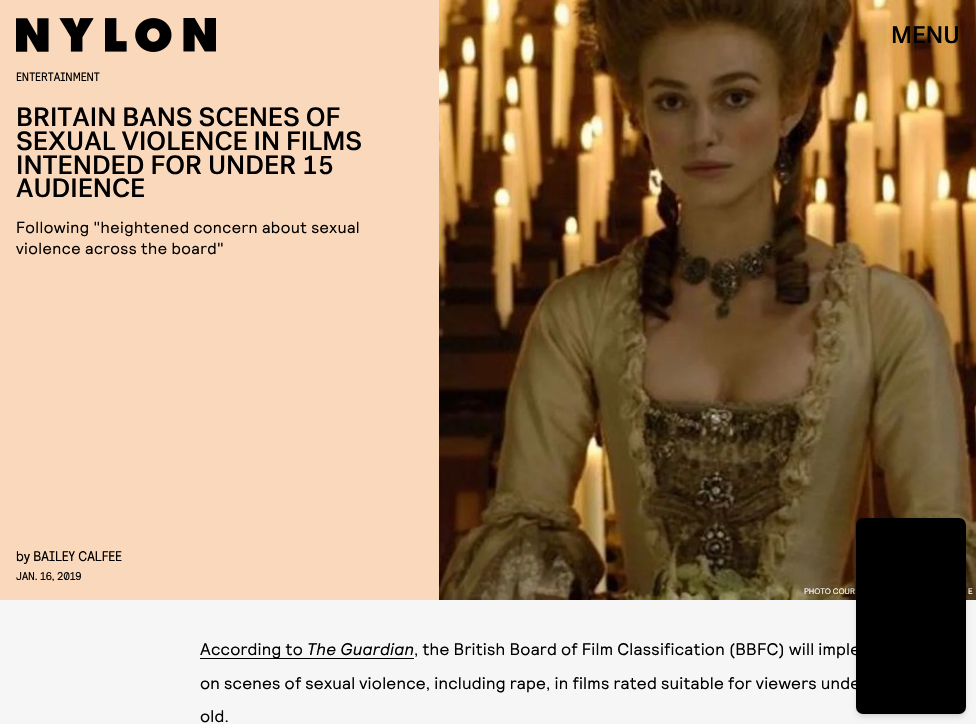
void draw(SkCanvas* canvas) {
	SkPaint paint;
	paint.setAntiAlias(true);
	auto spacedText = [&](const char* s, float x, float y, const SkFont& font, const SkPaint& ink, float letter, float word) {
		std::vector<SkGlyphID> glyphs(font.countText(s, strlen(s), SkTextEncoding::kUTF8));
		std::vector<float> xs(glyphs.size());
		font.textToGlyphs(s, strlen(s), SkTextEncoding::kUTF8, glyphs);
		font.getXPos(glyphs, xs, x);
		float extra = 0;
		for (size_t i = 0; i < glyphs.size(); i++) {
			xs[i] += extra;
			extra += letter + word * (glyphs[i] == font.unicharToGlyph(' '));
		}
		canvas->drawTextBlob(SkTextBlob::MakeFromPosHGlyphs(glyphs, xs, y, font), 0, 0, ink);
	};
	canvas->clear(0xfff6f6f6);
	paint.setColor(0xfff9d8bb);
	canvas->drawRect(SkRect::MakeXYWH(0, 0, 439, 600), paint);
	canvas->drawImageRect(SkImages::DeferredFromEncodedData(SkData::MakeFromFileName("img1.png")), SkRect::MakeXYWH(16, 18, 200, 34), SkSamplingOptions());
	canvas->drawImageRect(SkImages::DeferredFromEncodedData(SkData::MakeFromFileName("img2.png")), SkRect::MakeXYWH(439, 0, 537, 600), SkSamplingOptions());
	SkFont f1(fontMgr->matchFamilyStyle("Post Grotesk", SkFontStyle(500, SkFontStyle::kNormal_Width, SkFontStyle::kUpright_Slant)), 24);
	f1.setSubpixel(true);
	paint.setColor(0xff000000);
	canvas->drawString("MENU", 891, 43, f1, paint);
	SkFont f2(fontMgr->matchFamilyStyle("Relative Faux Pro", SkFontStyle::Normal()), 12);
	f2.setSubpixel(true);
	canvas->drawString("ENTERTAINMENT", 16, 81, f2, paint);
	SkFont f3(fontMgr->matchFamilyStyle("Post Grotesk", SkFontStyle(500, SkFontStyle::kNormal_Width, SkFontStyle::kUpright_Slant)), 26.4);
	f3.setSubpixel(true);
	canvas->drawString("BRITAIN BANS SCENES OF", 16, 126, f3, paint);
	canvas->drawString("SEXUAL VIOLENCE IN FILMS", 16, 150, f3, paint);
	canvas->drawString("INTENDED FOR UNDER 15", 16, 174, f3, paint);
	canvas->drawString("AUDIENCE", 16, 197, f3, paint);
	SkFont f4(fontMgr->matchFamilyStyle("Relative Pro", SkFontStyle::Normal()), 16);
	f4.setSubpixel(true);
	spacedText("Following \"heightened concern about sexual", 16, 233, f4, paint, 0.4, 0);
	spacedText("violence across the board\"", 16, 254, f4, paint, 0.4, 0);
	SkFont f5(fontMgr->matchFamilyStyle("Relative Faux Pro", SkFontStyle::Normal()), 14);
	f5.setSubpixel(true);
	canvas->drawString("by BAILEY CALFEE", 16, 561, f5, paint);
	SkFont f6(fontMgr->matchFamilyStyle("Relative Faux Pro", SkFontStyle::Normal()), 11.25);
	f6.setSubpixel(true);
	canvas->drawString("JAN. 16, 2019", 16, 580, f6, paint);
	SkFont f7(fontMgr->matchFamilyStyle("Relative Pro", SkFontStyle::Normal()), 8);
	f7.setSubpixel(true);
	paint.setColor(0xffffffff);
	canvas->drawString("PHOTO COUR", 804, 594, f7, paint);
	canvas->drawString("E", 968, 594, f7, paint);
	paint.setColor(0xff000000);
	canvas->drawRect(SkRect::MakeXYWH(200, 658, 214, 1), paint);
	SkFont f8(fontMgr->matchFamilyStyle("Relative Pro", SkFontStyle::Normal()), 16.8);
	f8.setSubpixel(true);
	spacedText("According to", 200, 655, f8, paint, 0.2, 0);
	SkFont f9(fontMgr->matchFamilyStyle("Relative Pro", SkFontStyle::Italic()), 16.8);
	f9.setSubpixel(true);
	spacedText("The Guardian", 307, 655, f9, paint, 0.2, 0);
	spacedText(", the British Board of Film Classification (BBFC) will imple", 414, 655, f8, paint, 0.2, 0);
	spacedText("on scenes of sexual violence, including rape, in films rated suitable for viewers unde", 200, 689, f8, paint, 0.2, 0);
	spacedText("old.", 200, 722, f8, paint, 0.2, 0);
	paint.setColor(0x1a000000);
	paint.setMaskFilter(SkMaskFilter::MakeBlur(kNormal_SkBlurStyle, 2));
	canvas->drawRoundRect(SkRect::MakeXYWH(858, 522, 106, 192), 5, 5, paint);
	paint.setMaskFilter(nullptr);
	paint.setMaskFilter(SkMaskFilter::MakeBlur(kNormal_SkBlurStyle, 3));
	canvas->drawRoundRect(SkRect::MakeXYWH(857, 523, 108, 194), 6, 6, paint);
	paint.setMaskFilter(nullptr);
	paint.setColor(0xff000000);
	canvas->drawRoundRect(SkRect::MakeXYWH(856, 518, 110, 196), 7, 7, paint);
}
